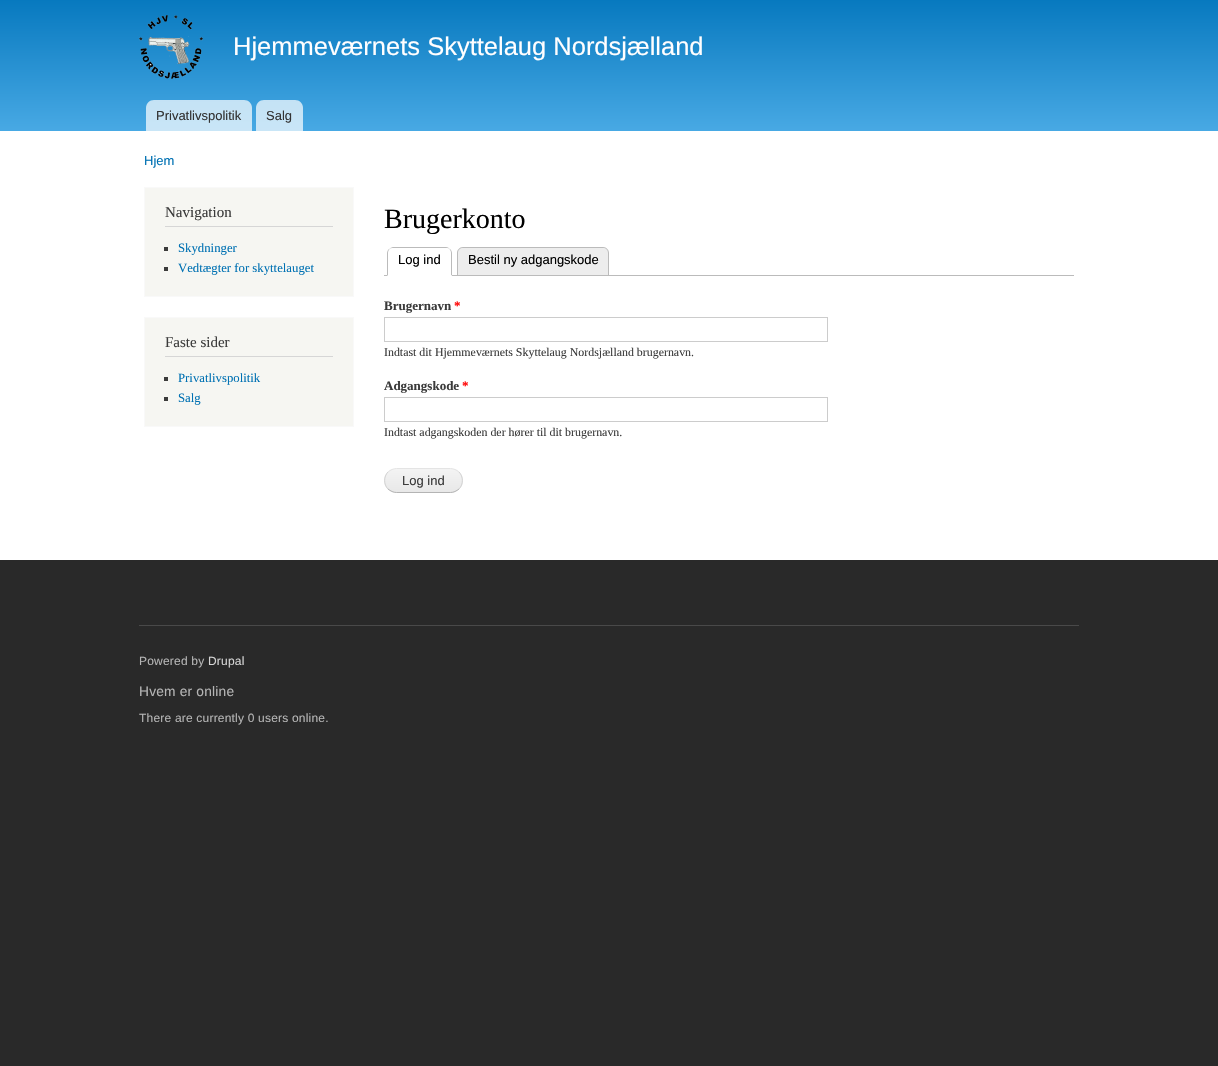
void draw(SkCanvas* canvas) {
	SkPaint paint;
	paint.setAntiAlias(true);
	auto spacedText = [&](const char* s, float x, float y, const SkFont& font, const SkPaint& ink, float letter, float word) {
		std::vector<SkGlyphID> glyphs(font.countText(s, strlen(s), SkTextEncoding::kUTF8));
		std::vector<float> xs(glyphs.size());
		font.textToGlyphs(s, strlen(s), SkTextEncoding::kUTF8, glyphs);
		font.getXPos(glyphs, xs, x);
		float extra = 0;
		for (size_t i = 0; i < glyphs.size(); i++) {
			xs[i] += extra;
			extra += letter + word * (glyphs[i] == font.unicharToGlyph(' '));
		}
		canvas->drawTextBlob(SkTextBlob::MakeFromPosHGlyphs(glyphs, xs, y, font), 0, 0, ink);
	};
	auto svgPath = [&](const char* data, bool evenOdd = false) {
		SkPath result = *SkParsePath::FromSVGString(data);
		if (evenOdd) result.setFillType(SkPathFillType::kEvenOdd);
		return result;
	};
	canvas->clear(0xff292929);
	paint.setColor(0xffffffff);
	canvas->drawRect(SkRect::MakeXYWH(0, 131, 1218, 429), paint);
	{
		const SkColor colors[] = {0xff0779bf, 0xff48a9e4};
		const float stops[] = {0, 1};
		const SkPoint ends[] = {{609, 0}, {609, 131}};
		paint.setShader(SkGradientShader::MakeLinear(ends, colors, stops, 2, SkTileMode::kClamp));
		paint.setAlpha(255);
	}
	canvas->drawRect(SkRect::MakeXYWH(0, 0, 1218, 131), paint);
	canvas->drawImageRect(SkImages::DeferredFromEncodedData(SkData::MakeFromFileName("img1.png")), SkRect::MakeXYWH(139, 15, 64, 64), SkSamplingOptions());
	SkFont f1(fontMgr->matchFamilyStyle("Liberation Sans", SkFontStyle::Normal()), 25.5);
	f1.setSubpixel(true);
	paint.setShader(nullptr);
	paint.setColor(0xfffffeff);
	canvas->drawString("Hjemmeværnets Skyttelaug Nordsjælland", 233, 55, f1, paint);
	paint.setColor(0xb3ffffff);
	canvas->drawPath(svgPath("M154 100H244C248.5 100 252 103.5 252 108V131H146V108C146 103.5 149.5 100 154 100Z"), paint);
	SkFont f2(fontMgr->matchFamilyStyle("Liberation Sans", SkFontStyle::Normal()), 13);
	f2.setSubpixel(true);
	paint.setColor(0xff333333);
	canvas->drawString("Privatlivspolitik", 156, 120, f2, paint);
	paint.setColor(0xb3ffffff);
	canvas->drawPath(svgPath("M264 100H295C299.5 100 303 103.5 303 108V131H256V108C256 103.5 259.5 100 264 100Z"), paint);
	paint.setColor(0xff333333);
	canvas->drawString("Salg", 266, 120, f2, paint);
	paint.setColor(0xff0071b3);
	canvas->drawString("Hjem", 144, 165, f2, paint);
	paint.setColor(0xfff6f6f2);
	canvas->drawRect(SkRect::MakeXYWH(144.5, 187.5, 209, 109), paint);
	paint.setStroke(true);
	paint.setStrokeWidth(1);
	paint.setColor(0xfff9f9f9);
	canvas->drawRect(SkRect::MakeXYWH(144.5, 187.5, 209, 109), paint);
	paint.setStroke(false);
	paint.setColor(0xffd6d6d6);
	canvas->drawRect(SkRect::MakeXYWH(165, 226, 168, 1), paint);
	SkFont f3(fontMgr->matchFamilyStyle("Liberation Serif", SkFontStyle::Normal()), 15);
	f3.setSubpixel(true);
	paint.setColor(0xff3b3b3b);
	canvas->drawString("Navigation", 165, 217, f3, paint);
	canvas->drawRect(SkRect::MakeXYWH(164, 247, 4, 4), paint);
	SkFont f4(fontMgr->matchFamilyStyle("Liberation Serif", SkFontStyle::Normal()), 12.75);
	f4.setSubpixel(true);
	paint.setColor(0xff0071b3);
	canvas->drawString("Skydninger", 178, 252, f4, paint);
	paint.setColor(0xff3b3b3b);
	canvas->drawRect(SkRect::MakeXYWH(164, 267, 4, 4), paint);
	paint.setColor(0xff0071b3);
	canvas->drawString("Vedtægter for skyttelauget", 178, 272, f4, paint);
	paint.setColor(0xfff6f6f2);
	canvas->drawRect(SkRect::MakeXYWH(144.5, 317.5, 209, 109), paint);
	paint.setStroke(true);
	paint.setColor(0xfff9f9f9);
	canvas->drawRect(SkRect::MakeXYWH(144.5, 317.5, 209, 109), paint);
	paint.setStroke(false);
	paint.setColor(0xffd6d6d6);
	canvas->drawRect(SkRect::MakeXYWH(165, 356, 168, 1), paint);
	paint.setColor(0xff3b3b3b);
	canvas->drawString("Faste sider", 165, 347, f3, paint);
	canvas->drawRect(SkRect::MakeXYWH(164, 377, 4, 4), paint);
	paint.setColor(0xff0071b3);
	canvas->drawString("Privatlivspolitik", 178, 382, f4, paint);
	paint.setColor(0xff3b3b3b);
	canvas->drawRect(SkRect::MakeXYWH(164, 397, 4, 4), paint);
	paint.setColor(0xff0071b3);
	canvas->drawString("Salg", 178, 402, f4, paint);
	SkFont f5(fontMgr->matchFamilyStyle("Liberation Serif", SkFontStyle::Normal()), 28);
	f5.setSubpixel(true);
	paint.setColor(0xff000000);
	canvas->drawString("Brugerkonto", 384, 228, f5, paint);
	paint.setColor(0xffbbbbbb);
	canvas->drawRect(SkRect::MakeXYWH(384, 275, 690, 1), paint);
	paint.setColor(0xffffffff);
	canvas->drawPath(svgPath("M393 247H446C449.5 247 452 249.5 452 253V276H387V253C387 249.5 389.5 247 393 247Z"), paint);
	paint.setColor(0xffbbbbbb);
	canvas->drawPath(svgPath("M393 247C392 247 390 248 389 249C390 248 392 248 393 248H446C448 248 449 248 450 249C449 248 448 247 446 247ZM452 276V253C452 251.5 451 250 450 249L449.5 249.5C450.5 250 451 251.5 451 253V275Z"), paint);
	paint.setColor(0xffffffff);
	canvas->drawPath(svgPath("M452 276L451 275H388L387 276Z"), paint);
	paint.setColor(0xffbbbbbb);
	canvas->drawPath(svgPath("M387 276L388 275V253C388 251.5 388.5 250 389.5 249.5L389 249C388 250 387 251.5 387 253Z"), paint);
	paint.setColor(0xff000000);
	canvas->drawString("Log ind", 398, 264, f2, paint);
	paint.setColor(0xffededed);
	canvas->drawPath(svgPath("M463 247H603C606.5 247 609 249.5 609 253V275H457V253C457 249.5 459.5 247 463 247Z"), paint);
	paint.setColor(0xffbbbbbb);
	canvas->drawPath(svgPath("M463 247H603C606 247 609 250 609 253V275H457V253C457 250 460 247 463 247ZM463 248H603C606 248 608 250 608 253V275H458V253C458 250 460 248 463 248Z", true), paint);
	paint.setColor(0xff000000);
	canvas->drawString("Bestil ny adgangskode", 468, 264, f2, paint);
	SkFont f6(fontMgr->matchFamilyStyle("Liberation Serif", SkFontStyle::Bold()), 13);
	f6.setSubpixel(true);
	paint.setColor(0xff3b3b3b);
	canvas->drawString("Brugernavn", 384, 310, f6, paint);
	paint.setColor(0xffff0000);
	canvas->drawString("*", 454, 310, f6, paint);
	paint.setStroke(true);
	paint.setColor(0xffcccccc);
	canvas->drawRect(SkRect::MakeXYWH(384.5, 317.5, 443, 24), paint);
	SkFont f7(fontMgr->matchFamilyStyle("Liberation Serif", SkFontStyle::Normal()), 11.9);
	f7.setSubpixel(true);
	paint.setStroke(false);
	paint.setColor(0xff3b3b3b);
	canvas->drawString("Indtast dit Hjemmeværnets Skyttelaug Nordsjælland brugernavn.", 384, 356, f7, paint);
	canvas->drawString("Adgangskode", 384, 390, f6, paint);
	paint.setColor(0xffff0000);
	canvas->drawString("*", 462, 390, f6, paint);
	paint.setStroke(true);
	paint.setColor(0xffcccccc);
	canvas->drawRect(SkRect::MakeXYWH(384.5, 397.5, 443, 24), paint);
	paint.setStroke(false);
	paint.setColor(0xff3b3b3b);
	canvas->drawString("Indtast adgangskoden der hører til dit brugernavn.", 384, 436, f7, paint);
	canvas->drawImageRect(SkImages::DeferredFromEncodedData(SkData::MakeFromFileName("img2.png")), SkRect::MakeXYWH(384, 469, 79, 24), SkSamplingOptions());
	paint.setStroke(true);
	paint.setColor(0xffe4e4e4);
	canvas->drawPath(svgPath("M388 472C390.5 470 393.5 468.5 396.5 468.5H450.5C453.5 468.5 456.5 470 459 472"), paint);
	paint.setColor(0xffd2d2d2);
	canvas->drawPath(svgPath("M459 472C463.5 476.5 463.5 484.5 459 489"), paint);
	paint.setColor(0xffb4b4b4);
	canvas->drawPath(svgPath("M459 489C456.5 491 453.5 492.5 450.5 492.5H396.5C393.5 492.5 390.5 491 388 489"), paint);
	paint.setColor(0xffd2d2d2);
	canvas->drawPath(svgPath("M388 489C383.5 484.5 383.5 476.5 388 472"), paint);
	paint.setStroke(false);
	paint.setColor(0xff3b3b3b);
	canvas->drawString("Log ind", 402, 485, f2, paint);
	paint.setColor(0xff494949);
	canvas->drawRect(SkRect::MakeXYWH(139, 625, 940, 1), paint);
	SkFont f8(fontMgr->matchFamilyStyle("Liberation Sans", SkFontStyle::Normal()), 12);
	f8.setSubpixel(true);
	paint.setColor(0xffb4b4b4);
	spacedText("Powered by", 139, 665, f8, paint, 0.2, 0);
	paint.setColor(0xffd4d4d4);
	spacedText("Drupal", 208, 665, f8, paint, 0.2, 0);
	SkFont f9(fontMgr->matchFamilyStyle("Liberation Sans", SkFontStyle::Normal()), 13.75);
	f9.setSubpixel(true);
	paint.setColor(0xffb4b4b4);
	spacedText("Hvem er online", 139, 696, f9, paint, 0.2, 0);
	spacedText("There are currently 0 users online.", 139, 722, f8, paint, 0.2, 0);
}
